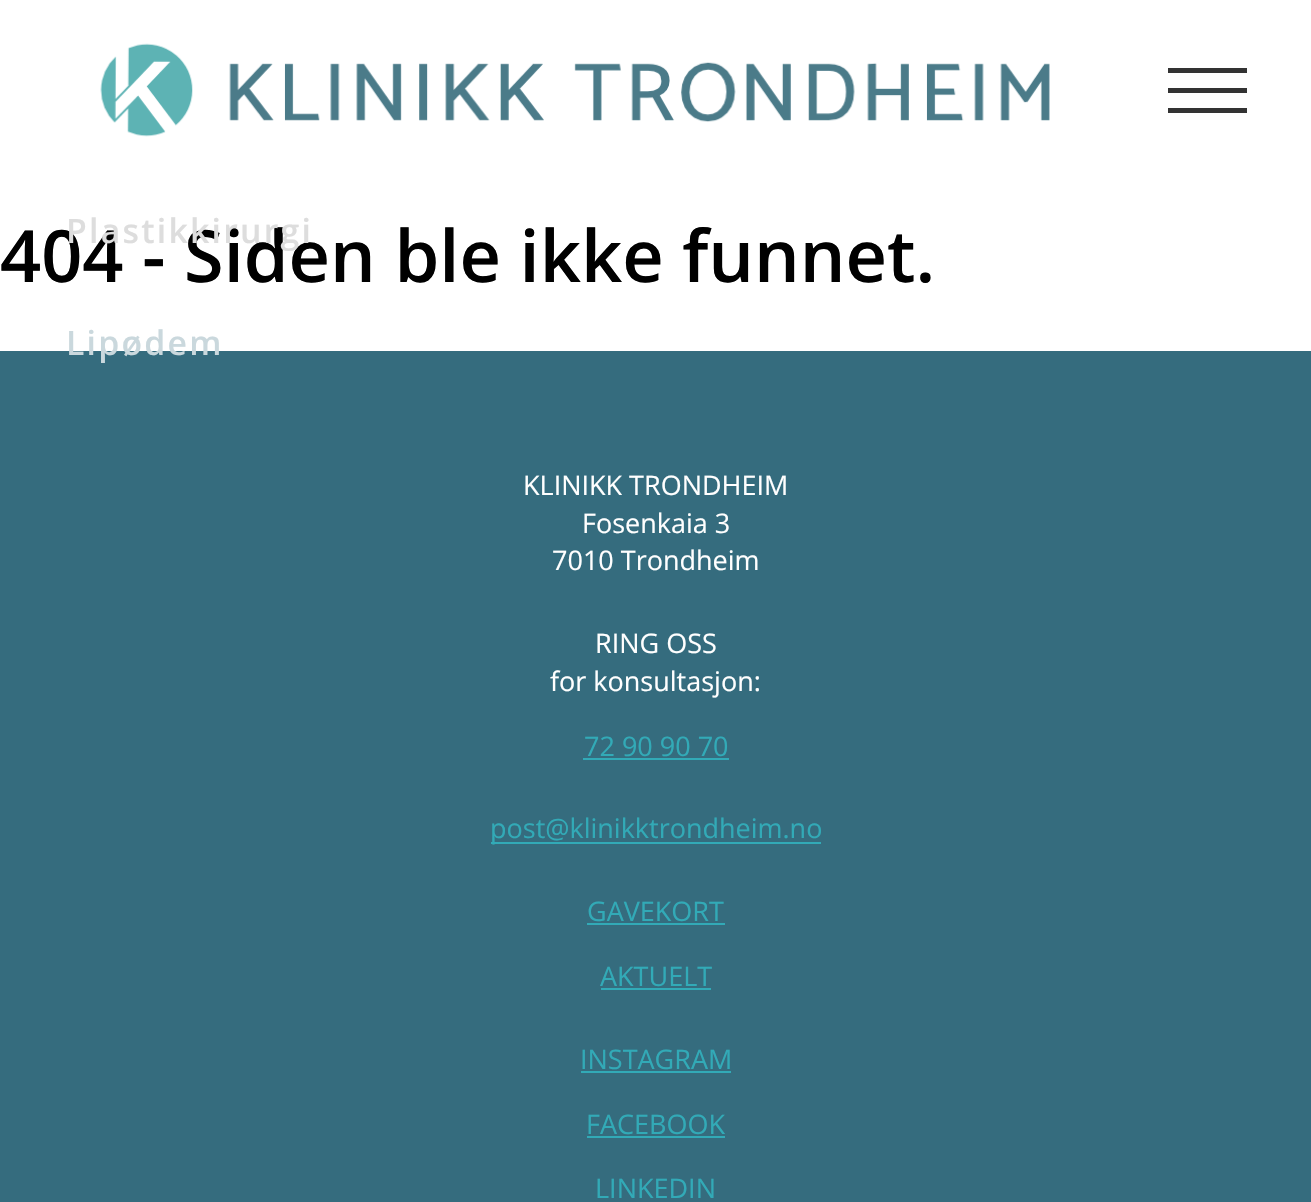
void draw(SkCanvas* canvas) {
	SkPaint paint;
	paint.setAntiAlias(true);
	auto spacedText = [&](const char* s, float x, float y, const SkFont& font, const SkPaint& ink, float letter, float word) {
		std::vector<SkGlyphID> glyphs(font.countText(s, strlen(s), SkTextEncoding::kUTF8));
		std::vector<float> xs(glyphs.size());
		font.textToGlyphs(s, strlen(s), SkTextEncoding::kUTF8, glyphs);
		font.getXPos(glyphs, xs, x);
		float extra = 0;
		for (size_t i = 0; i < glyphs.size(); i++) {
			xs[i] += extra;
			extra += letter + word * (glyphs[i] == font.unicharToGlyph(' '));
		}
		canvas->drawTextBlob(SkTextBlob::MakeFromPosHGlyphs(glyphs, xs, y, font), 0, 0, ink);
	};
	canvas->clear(0xffffffff);
	canvas->drawImageRect(SkImages::DeferredFromEncodedData(SkData::MakeFromFileName("img1.png")), SkRect::MakeXYWH(100, 43, 950, 94), SkSamplingOptions());
	paint.setColor(0xff333333);
	canvas->drawRect(SkRect::MakeXYWH(1168, 68, 79, 5), paint);
	canvas->drawRect(SkRect::MakeXYWH(1168, 88, 79, 5), paint);
	canvas->drawRect(SkRect::MakeXYWH(1168, 108, 79, 5), paint);
	SkFont f1(fontMgr->matchFamilyStyle("Open Sans", SkFontStyle(600, SkFontStyle::kNormal_Width, SkFontStyle::kUpright_Slant)), 72);
	f1.setSubpixel(true);
	paint.setColor(0xff000000);
	canvas->drawString("404 - Siden ble ikke funnet.", 0, 282, f1, paint);
	SkFont f2(fontMgr->matchFamilyStyle("Open Sans", SkFontStyle(600, SkFontStyle::kNormal_Width, SkFontStyle::kUpright_Slant)), 33.75);
	f2.setSubpixel(true);
	paint.setColor(0xffdddddd);
	spacedText("Plastikkirurgi", 66, 243, f2, paint, 2.25, 0);
	paint.setColor(0xff356c7e);
	canvas->drawRect(SkRect::MakeXYWH(0, 351, 1311, 851), paint);
	paint.setColor(0xffcad8dd);
	spacedText("Lipødem", 66, 355, f2, paint, 2.25, 0);
	SkFont f3(fontMgr->matchFamilyStyle("Open Sans", SkFontStyle::Normal()), 27);
	f3.setSubpixel(true);
	paint.setColor(0xffffffff);
	canvas->drawString("KLINIKK TRONDHEIM", 523, 495, f3, paint);
	canvas->drawString("Fosenkaia 3", 582, 533, f3, paint);
	canvas->drawString("7010 Trondheim", 552, 570, f3, paint);
	canvas->drawString("RING OSS", 595, 653, f3, paint);
	canvas->drawString("for konsultasjon:", 550, 691, f3, paint);
	paint.setColor(0xff32aab7);
	canvas->drawString("72 90 90 70", 584, 756, f3, paint);
	canvas->drawRect(SkRect::MakeXYWH(583, 758, 146, 2), paint);
	canvas->drawRect(SkRect::MakeXYWH(491, 842, 330, 2), paint);
	canvas->drawString("post@klinikktrondheim.no", 490, 838, f3, paint);
	canvas->drawString("GAVEKORT", 587, 921, f3, paint);
	canvas->drawRect(SkRect::MakeXYWH(587, 923, 138, 2), paint);
	canvas->drawString("AKTUELT", 600, 986, f3, paint);
	canvas->drawRect(SkRect::MakeXYWH(601, 988, 110, 2), paint);
	canvas->drawString("INSTAGRAM", 580, 1069, f3, paint);
	canvas->drawRect(SkRect::MakeXYWH(581, 1071, 150, 2), paint);
	canvas->drawString("FACEBOOK", 586, 1134, f3, paint);
	canvas->drawRect(SkRect::MakeXYWH(587, 1136, 138, 2), paint);
	canvas->drawString("LINKEDIN", 595, 1198, f3, paint);
}
